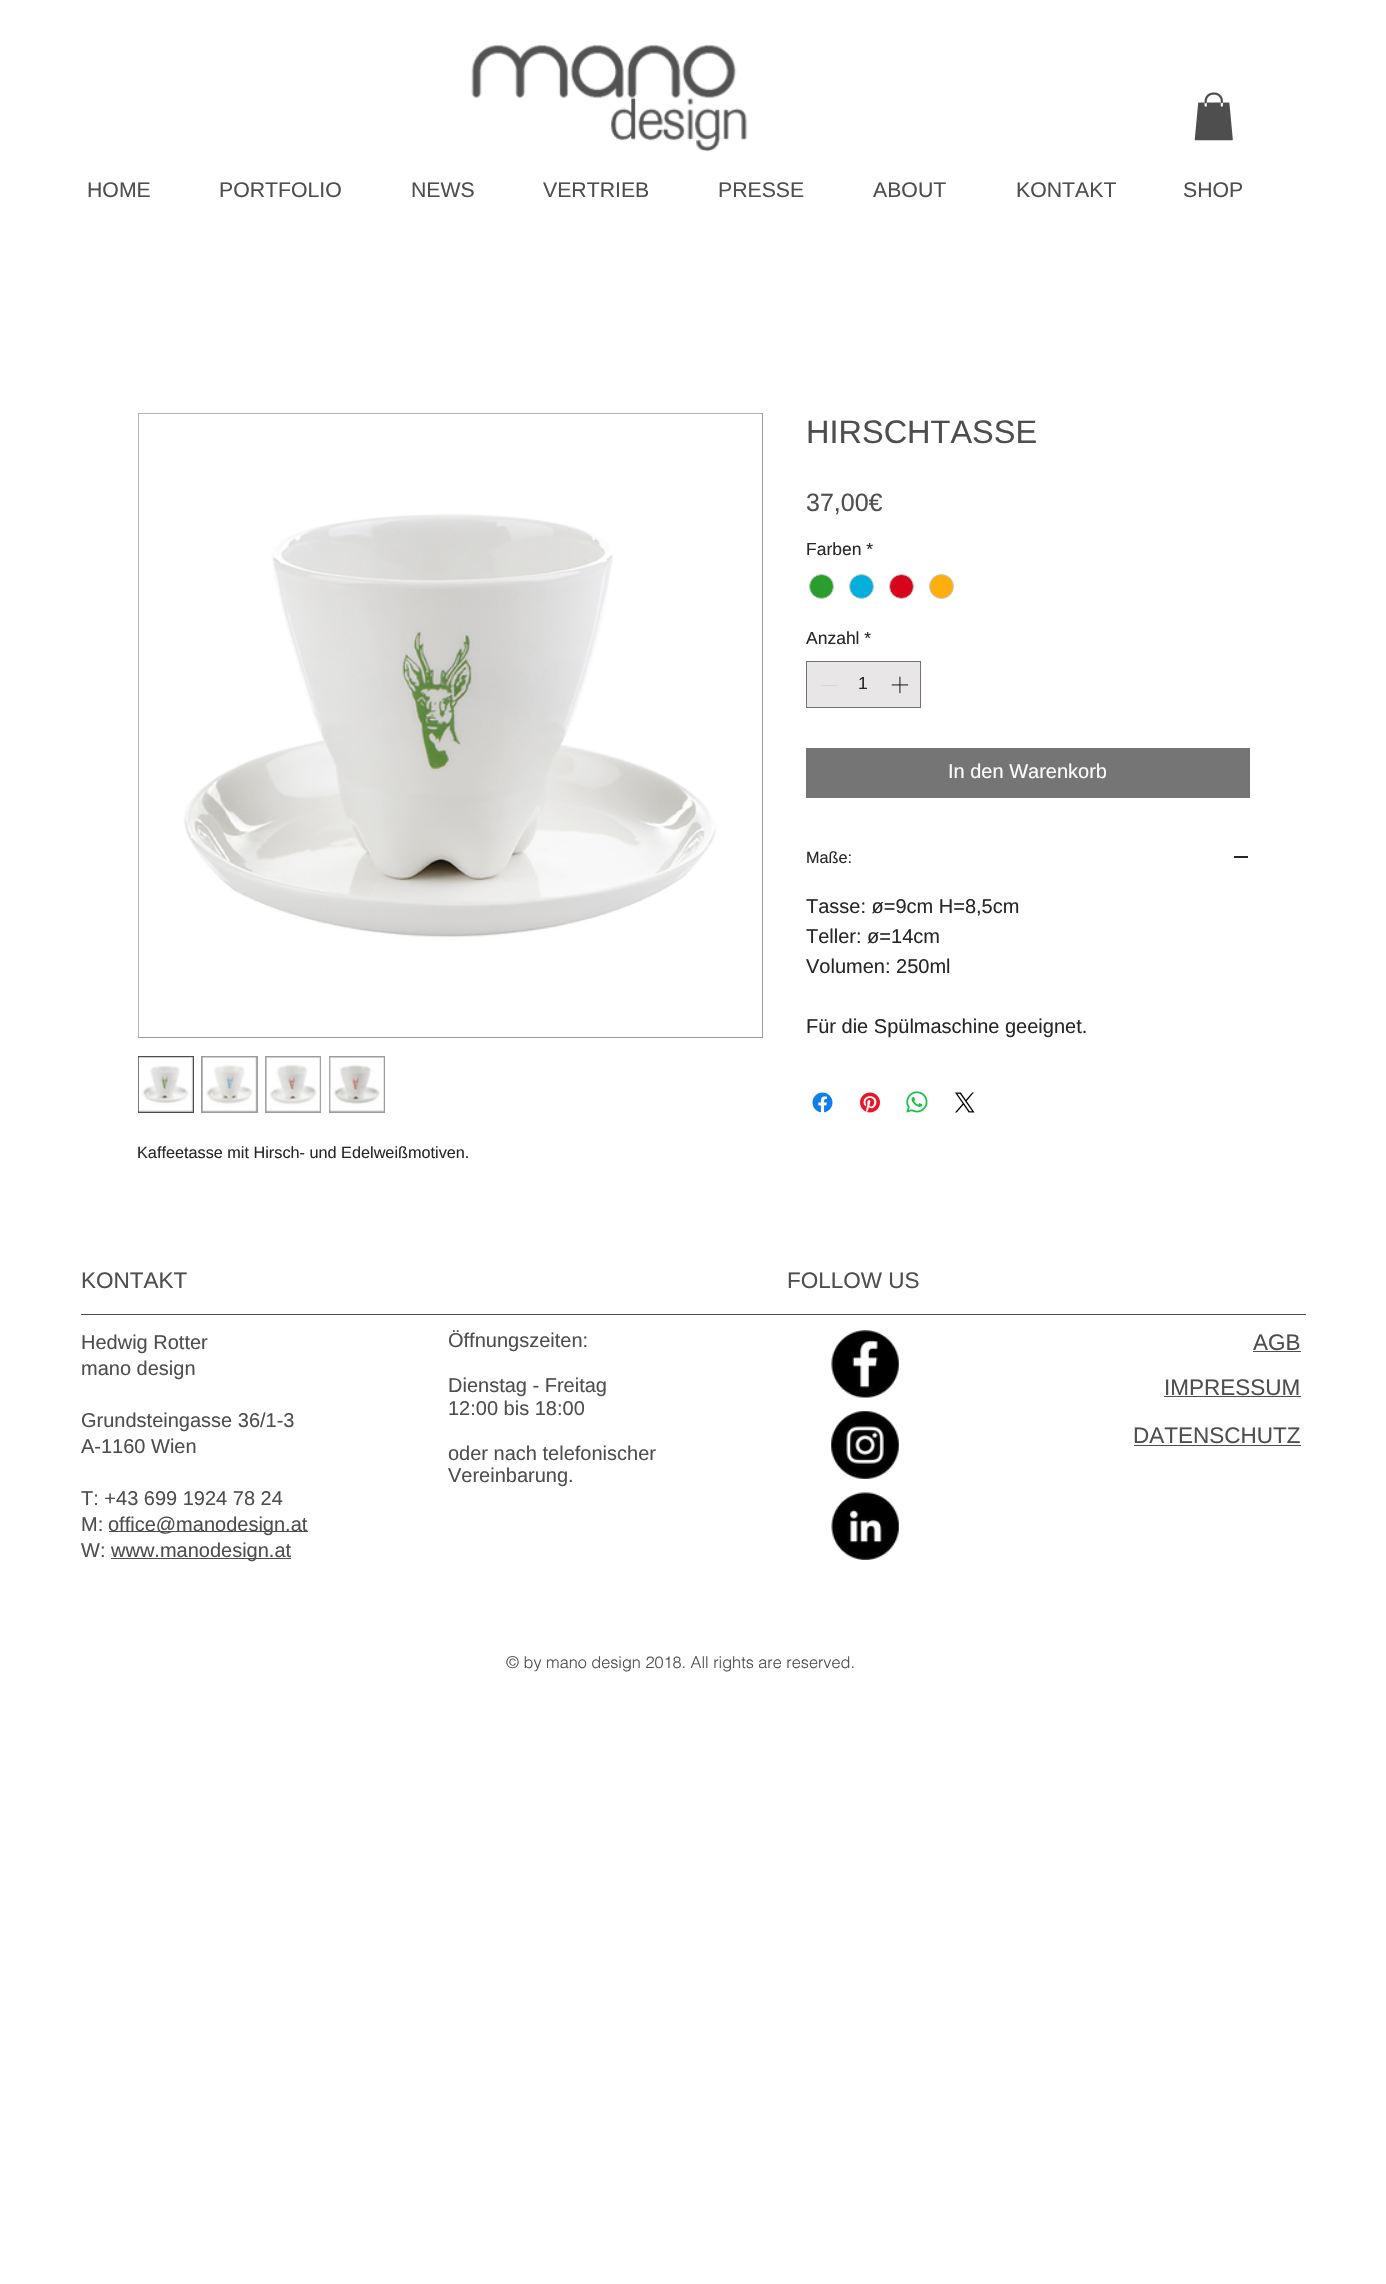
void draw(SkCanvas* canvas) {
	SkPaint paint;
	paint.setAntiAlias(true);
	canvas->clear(0xffffffff);
	canvas->drawImageRect(SkImages::DeferredFromEncodedData(SkData::MakeFromFileName("img1.png")), SkRect::MakeXYWH(471, 44, 277, 108), SkSamplingOptions());
	canvas->drawImageRect(SkImages::DeferredFromEncodedData(SkData::MakeFromFileName("img2.png")), SkRect::MakeXYWH(1194, 92, 39, 49), SkSamplingOptions());
	SkFont f1(fontMgr->matchFamilyStyle("Liberation Sans", SkFontStyle::Normal()), 21.25);
	f1.setSubpixel(true);
	paint.setColor(0xff4e4e4e);
	canvas->drawString("HOME", 87, 197, f1, paint);
	canvas->drawString("PORTFOLIO", 219, 197, f1, paint);
	canvas->drawString("NEWS", 411, 197, f1, paint);
	canvas->drawString("VERTRIEB", 543, 197, f1, paint);
	canvas->drawString("PRESSE", 718, 197, f1, paint);
	canvas->drawString("ABOUT", 873, 197, f1, paint);
	canvas->drawString("KONTAKT", 1016, 197, f1, paint);
	canvas->drawString("SHOP", 1183, 197, f1, paint);
	SkFont f2(fontMgr->matchFamilyStyle("Liberation Sans", SkFontStyle::Normal()), 32.5);
	f2.setSubpixel(true);
	canvas->drawString("HIRSCHTASSE", 806, 443, f2, paint);
	SkFont f3(fontMgr->matchFamilyStyle("Liberation Sans", SkFontStyle::Normal()), 25);
	f3.setSubpixel(true);
	canvas->drawString("37,00€", 806, 511, f3, paint);
	SkFont f4(fontMgr->matchFamilyStyle("Liberation Sans", SkFontStyle::Normal()), 17.5);
	f4.setSubpixel(true);
	paint.setColor(0xff272727);
	canvas->drawString("Farben *", 806, 555, f4, paint);
	paint.setColor(0xff2a9e2d);
	canvas->drawCircle(821.5, 586.5, 12, paint);
	paint.setStroke(true);
	paint.setStrokeWidth(1);
	paint.setColor(0xffc9c9c9);
	canvas->drawCircle(821.5, 586.5, 12, paint);
	paint.setStroke(false);
	paint.setColor(0xff04afdb);
	canvas->drawCircle(861.5, 586.5, 12, paint);
	paint.setStroke(true);
	paint.setColor(0xffc9c9c9);
	canvas->drawCircle(861.5, 586.5, 12, paint);
	paint.setStroke(false);
	paint.setColor(0xffd7041c);
	canvas->drawCircle(901.5, 586.5, 12, paint);
	paint.setStroke(true);
	paint.setColor(0xffc9c9c9);
	canvas->drawCircle(901.5, 586.5, 12, paint);
	paint.setStroke(false);
	paint.setColor(0xffffae0c);
	canvas->drawCircle(941.5, 586.5, 12, paint);
	paint.setStroke(true);
	paint.setColor(0xffc9c9c9);
	canvas->drawCircle(941.5, 586.5, 12, paint);
	paint.setStroke(false);
	paint.setColor(0xff272727);
	canvas->drawString("Anzahl *", 806, 644, f4, paint);
	paint.setColor(0xffe8e6e6);
	canvas->drawRect(SkRect::MakeXYWH(806.5, 661.5, 114, 46), paint);
	paint.setStroke(true);
	paint.setColor(0xff747373);
	canvas->drawRect(SkRect::MakeXYWH(806.5, 661.5, 114, 46), paint);
	paint.setStroke(false);
	paint.setColor(0xffd8d7d7);
	canvas->drawRect(SkRect::MakeXYWH(821, 685, 16, 1), paint);
	paint.setColor(0xff272727);
	canvas->drawString("1", 858, 689, f4, paint);
	canvas->drawImageRect(SkImages::DeferredFromEncodedData(SkData::MakeFromFileName("img3.png")), SkRect::MakeXYWH(891, 676, 18, 18), SkSamplingOptions());
	paint.setColor(0xff757575);
	canvas->drawRect(SkRect::MakeXYWH(806, 748, 444, 50), paint);
	SkFont f5(fontMgr->matchFamilyStyle("Liberation Sans", SkFontStyle::Normal()), 20);
	f5.setSubpixel(true);
	paint.setColor(0xfffdfdfe);
	canvas->drawString("In den Warenkorb", 948, 778, f5, paint);
	SkFont f6(fontMgr->matchFamilyStyle("Liberation Sans", SkFontStyle::Normal()), 16.25);
	f6.setSubpixel(true);
	paint.setColor(0xff272727);
	canvas->drawString("Maße:", 806, 863, f6, paint);
	canvas->drawRect(SkRect::MakeXYWH(1234, 856, 14, 2), paint);
	canvas->drawString("Tasse: ø=9cm H=8,5cm", 806, 913, f5, paint);
	canvas->drawString("Teller: ø=14cm", 806, 943, f5, paint);
	canvas->drawString("Volumen: 250ml", 806, 973, f5, paint);
	canvas->drawString("Für die Spülmaschine geeignet.", 806, 1033, f5, paint);
	canvas->drawImageRect(SkImages::DeferredFromEncodedData(SkData::MakeFromFileName("img4.png")), SkRect::MakeXYWH(812, 1092, 21, 21), SkSamplingOptions());
	canvas->drawImageRect(SkImages::DeferredFromEncodedData(SkData::MakeFromFileName("img5.png")), SkRect::MakeXYWH(860, 1092, 20, 21), SkSamplingOptions());
	canvas->drawImageRect(SkImages::DeferredFromEncodedData(SkData::MakeFromFileName("img6.png")), SkRect::MakeXYWH(906, 1091, 22, 22), SkSamplingOptions());
	canvas->drawImageRect(SkImages::DeferredFromEncodedData(SkData::MakeFromFileName("img7.png")), SkRect::MakeXYWH(955, 1092, 20, 21), SkSamplingOptions());
	paint.setStroke(true);
	paint.setColor(0xff9c9c9c);
	canvas->drawRect(SkRect::MakeXYWH(138.5, 413.5, 624, 624), paint);
	canvas->drawImageRect(SkImages::DeferredFromEncodedData(SkData::MakeFromFileName("img8.png")), SkRect::MakeXYWH(138, 413, 624, 624), SkSamplingOptions());
	paint.setStroke(false);
	canvas->drawRect(SkRect::MakeXYWH(138.5, 1056.5, 55, 56), paint);
	paint.setStroke(true);
	paint.setColor(0xff4e4e4e);
	canvas->drawRect(SkRect::MakeXYWH(138.5, 1056.5, 55, 56), paint);
	canvas->drawImageRect(SkImages::DeferredFromEncodedData(SkData::MakeFromFileName("img9.png")), SkRect::MakeXYWH(138, 1057, 55, 55), SkSamplingOptions());
	paint.setStroke(false);
	paint.setColor(0xff9c9c9c);
	canvas->drawRect(SkRect::MakeXYWH(201, 1056, 57, 57), paint);
	canvas->drawImageRect(SkImages::DeferredFromEncodedData(SkData::MakeFromFileName("img10.png")), SkRect::MakeXYWH(202, 1057, 55, 55), SkSamplingOptions());
	canvas->drawRect(SkRect::MakeXYWH(265, 1056, 56, 57), paint);
	canvas->drawImageRect(SkImages::DeferredFromEncodedData(SkData::MakeFromFileName("img11.png")), SkRect::MakeXYWH(265, 1057, 56, 55), SkSamplingOptions());
	canvas->drawRect(SkRect::MakeXYWH(329, 1056, 56, 57), paint);
	canvas->drawImageRect(SkImages::DeferredFromEncodedData(SkData::MakeFromFileName("img12.png")), SkRect::MakeXYWH(329, 1057, 55, 55), SkSamplingOptions());
	paint.setColor(0xff272727);
	canvas->drawString("Kaffeetasse mit Hirsch- und Edelweißmotiven.", 137, 1158, f6, paint);
	SkFont f7(fontMgr->matchFamilyStyle("Liberation Sans", SkFontStyle::Normal()), 22.5);
	f7.setSubpixel(true);
	paint.setColor(0xff4e4e4e);
	canvas->drawString("KONTAKT", 81, 1288, f7, paint);
	canvas->drawString("FOLLOW US", 787, 1288, f7, paint);
	canvas->drawRect(SkRect::MakeXYWH(81, 1314, 1225, 1), paint);
	canvas->drawString("Hedwig Rotter", 81, 1349, f5, paint);
	canvas->drawString("mano design", 81, 1375, f5, paint);
	canvas->drawString("Grundsteingasse 36/1-3", 81, 1427, f5, paint);
	canvas->drawString("A-1160 Wien", 81, 1453, f5, paint);
	canvas->drawString("T: +43 699 1924 78 24", 81, 1505, f5, paint);
	canvas->drawString("M:", 81, 1531, f5, paint);
	canvas->drawRect(SkRect::MakeXYWH(109, 1531, 199, 1), paint);
	canvas->drawString("office@manodesign.at", 108, 1531, f5, paint);
	canvas->drawString("W:", 81, 1557, f5, paint);
	canvas->drawRect(SkRect::MakeXYWH(111, 1558, 180, 1), paint);
	canvas->drawString("www.manodesign.at", 111, 1557, f5, paint);
	canvas->drawString("Öffnungszeiten:", 448, 1347, f5, paint);
	canvas->drawString("Dienstag - Freitag", 448, 1392, f5, paint);
	canvas->drawString("12:00 bis 18:00", 448, 1415, f5, paint);
	canvas->drawString("oder nach telefonischer", 448, 1460, f5, paint);
	canvas->drawString("Vereinbarung.", 448, 1482, f5, paint);
	canvas->drawImageRect(SkImages::DeferredFromEncodedData(SkData::MakeFromFileName("img13.png")), SkRect::MakeXYWH(831, 1330, 68, 68), SkSamplingOptions());
	canvas->drawImageRect(SkImages::DeferredFromEncodedData(SkData::MakeFromFileName("img14.png")), SkRect::MakeXYWH(831, 1411, 68, 68), SkSamplingOptions());
	canvas->drawImageRect(SkImages::DeferredFromEncodedData(SkData::MakeFromFileName("img15.png")), SkRect::MakeXYWH(831, 1492, 68, 68), SkSamplingOptions());
	canvas->drawString("AGB", 1253, 1350, f7, paint);
	canvas->drawRect(SkRect::MakeXYWH(1253, 1351, 48, 1), paint);
	canvas->drawString("IMPRESSUM", 1164, 1395, f7, paint);
	canvas->drawRect(SkRect::MakeXYWH(1164, 1396, 137, 1), paint);
	canvas->drawString("DATENSCHUTZ", 1133, 1443, f7, paint);
	canvas->drawRect(SkRect::MakeXYWH(1134, 1445, 167, 1), paint);
	SkFont f8(fontMgr->matchFamilyStyle("helvetica", SkFontStyle(300, SkFontStyle::kNormal_Width, SkFontStyle::kUpright_Slant)), 16.25);
	f8.setSubpixel(true);
	canvas->drawString("© by mano design 2018. All rights are reserved.", 506, 1668, f8, paint);
}
